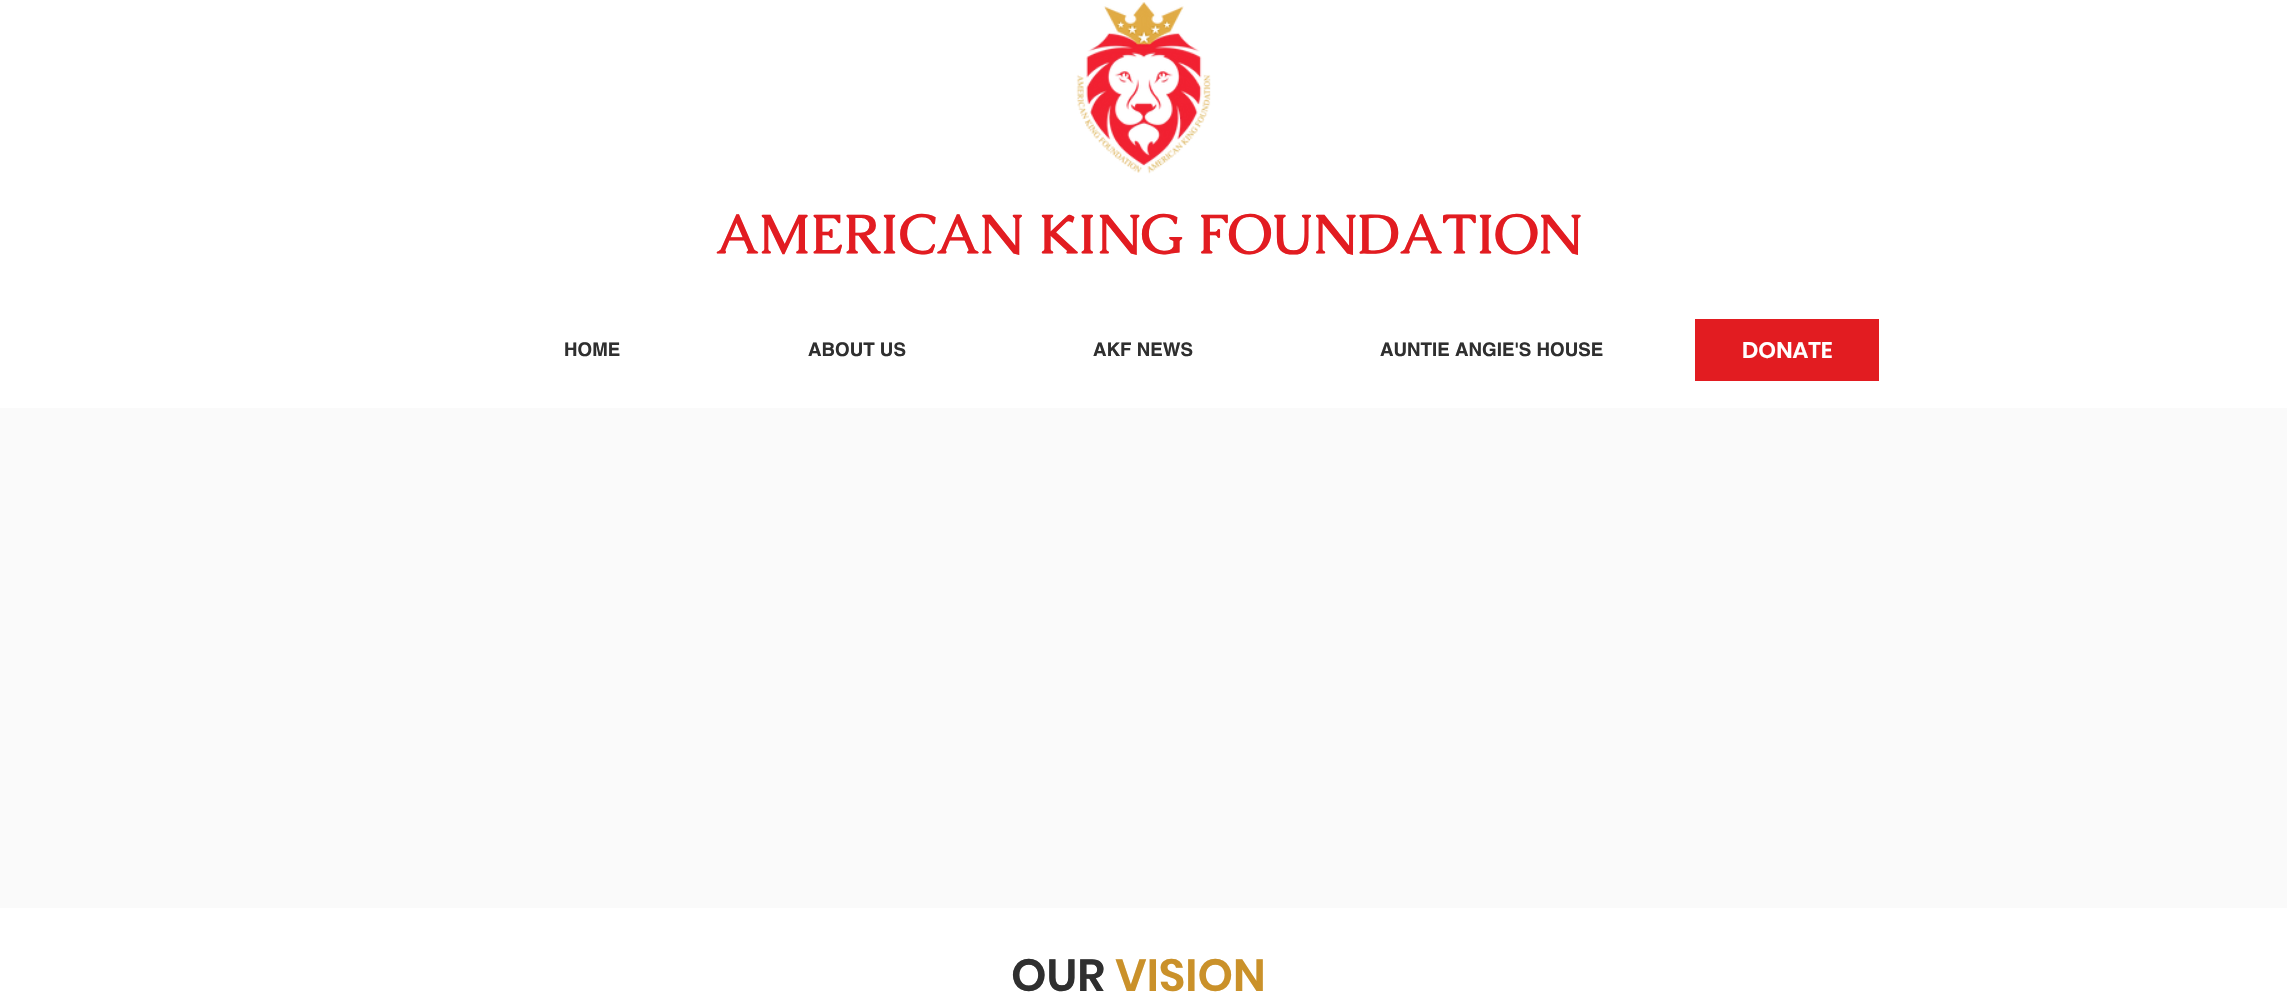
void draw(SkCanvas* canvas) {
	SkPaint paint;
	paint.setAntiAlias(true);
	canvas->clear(0xffffffff);
	canvas->drawImageRect(SkImages::DeferredFromEncodedData(SkData::MakeFromFileName("img1.png")), SkRect::MakeXYWH(1076, 2, 135, 172), SkSamplingOptions());
	SkFont f1(fontMgr->matchFamilyStyle("Caudex", SkFontStyle::Bold()), 55);
	f1.setSubpixel(true);
	paint.setColor(0xffe21c21);
	canvas->drawString("AMERICAN KING FOUNDATION", 716, 253, f1, paint);
	SkFont f2(fontMgr->matchFamilyStyle("helvetica", SkFontStyle::Bold()), 18.75);
	f2.setSubpixel(true);
	paint.setColor(0xff2f2f2f);
	canvas->drawString("HOME", 564, 356, f2, paint);
	canvas->drawString("ABOUT US", 808, 356, f2, paint);
	canvas->drawString("AKF NEWS", 1093, 356, f2, paint);
	canvas->drawString("AUNTIE ANGIE'S HOUSE", 1380, 356, f2, paint);
	paint.setColor(0xffe21c21);
	canvas->drawRect(SkRect::MakeXYWH(1695, 319, 184, 62), paint);
	SkFont f3(fontMgr->matchFamilyStyle("Poppins", SkFontStyle(600, SkFontStyle::kNormal_Width, SkFontStyle::kUpright_Slant)), 22.5);
	f3.setSubpixel(true);
	paint.setColor(0xffffffff);
	canvas->drawString("DONATE", 1742, 358, f3, paint);
	paint.setColor(0xfffafafa);
	canvas->drawRect(SkRect::MakeXYWH(0, 408, 2287, 500), paint);
	SkFont f4(fontMgr->matchFamilyStyle("Poppins", SkFontStyle(600, SkFontStyle::kNormal_Width, SkFontStyle::kUpright_Slant)), 45);
	f4.setSubpixel(true);
	paint.setColor(0xff2f2f2f);
	canvas->drawString("OUR", 1011, 991, f4, paint);
	paint.setColor(0xffca912a);
	canvas->drawString("VISION", 1115, 991, f4, paint);
}
